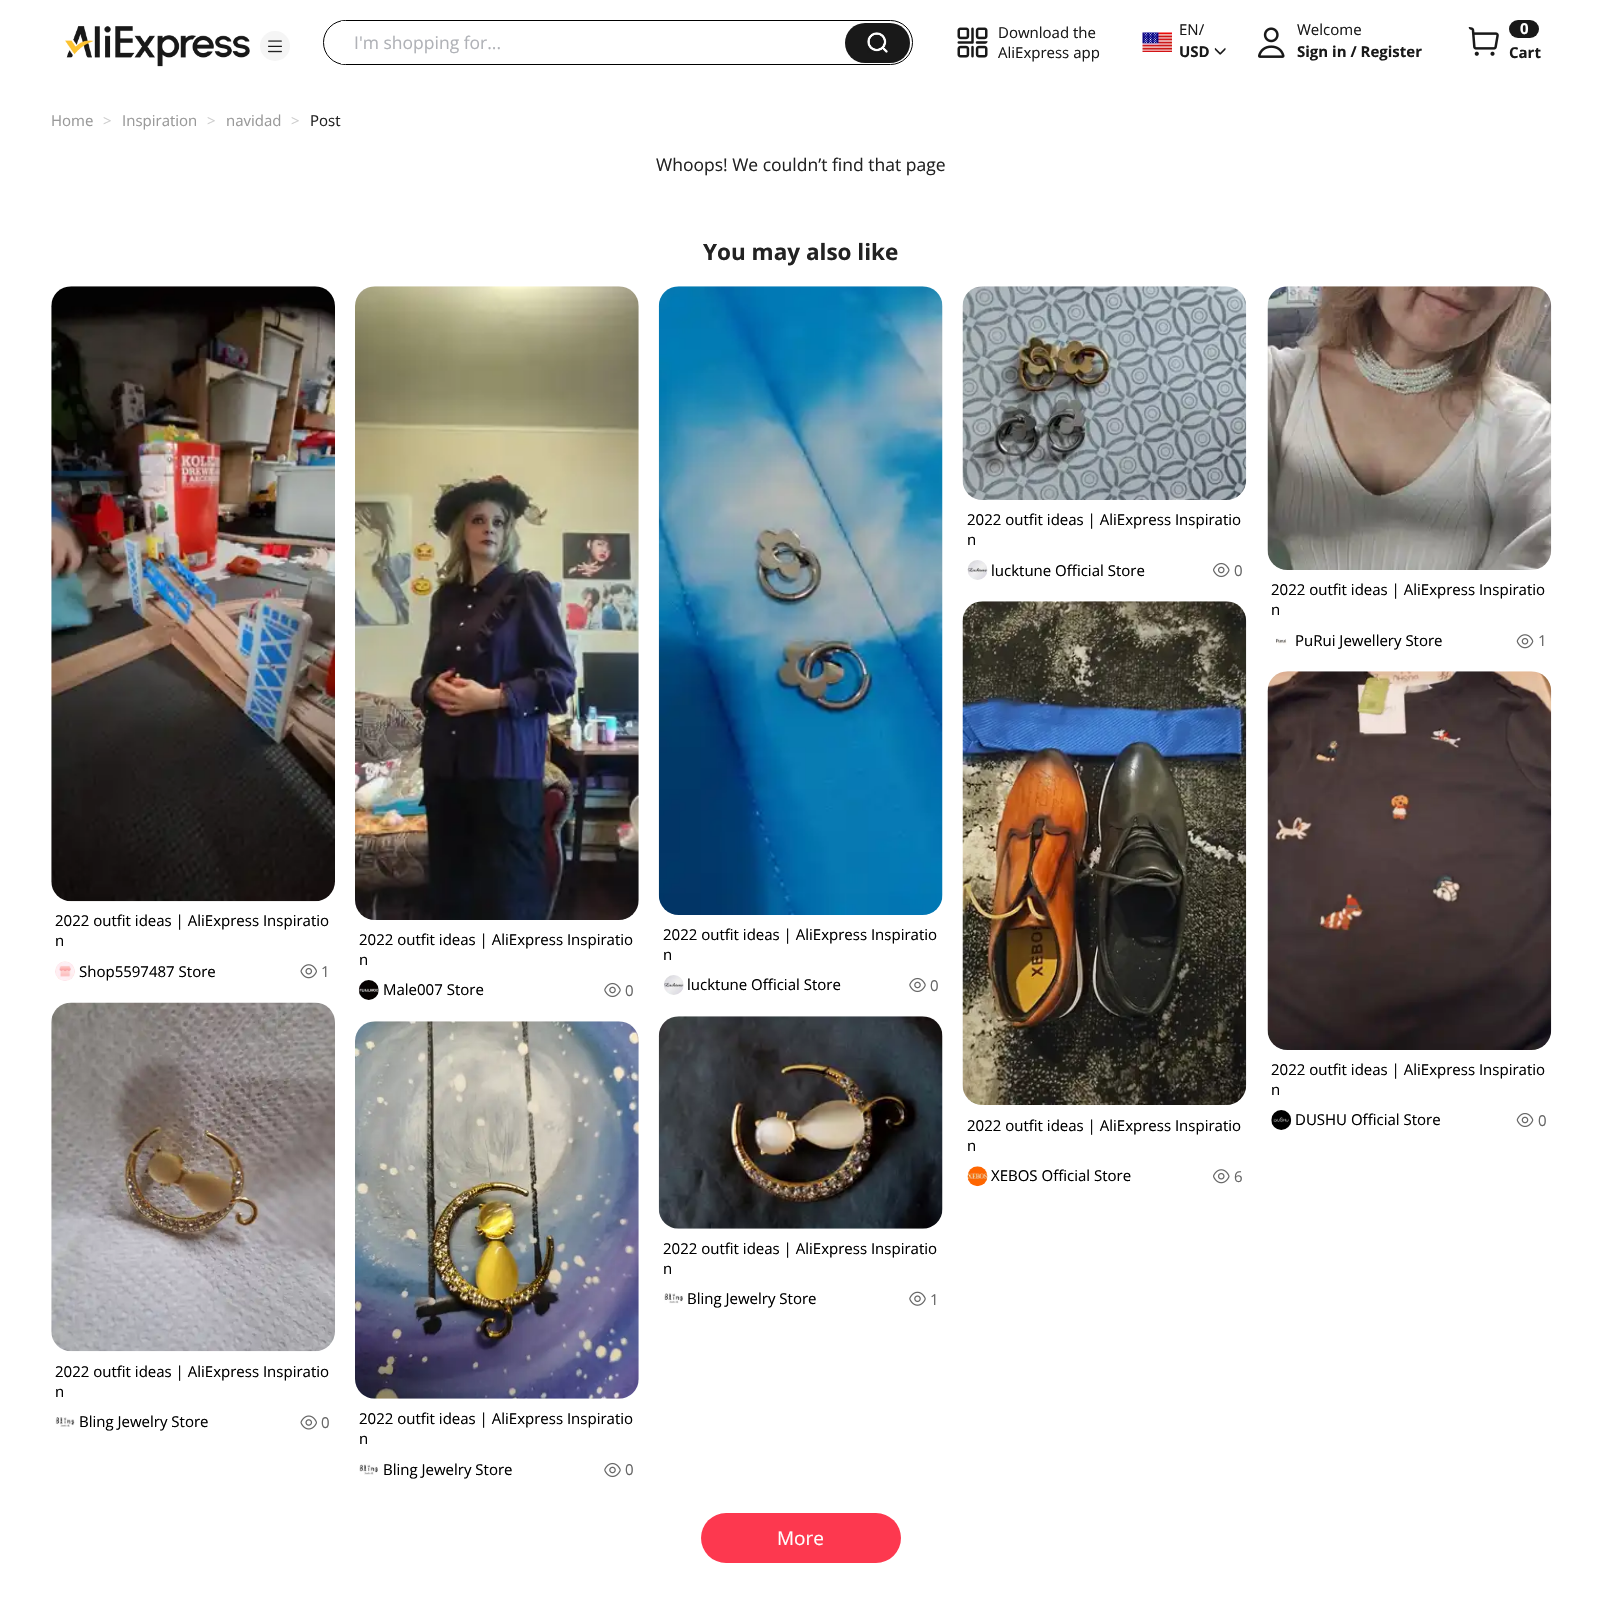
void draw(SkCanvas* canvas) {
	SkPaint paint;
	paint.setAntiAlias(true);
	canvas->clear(0xffffffff);
	canvas->drawImageRect(SkImages::DeferredFromEncodedData(SkData::MakeFromFileName("img1.png")), SkRect::MakeXYWH(65, 26, 185, 41), SkSamplingOptions());
	paint.setColor(0xfff5f5f5);
	canvas->drawCircle(275, 46, 15, paint);
	canvas->drawImageRect(SkImages::DeferredFromEncodedData(SkData::MakeFromFileName("img2.png")), SkRect::MakeXYWH(268, 40, 14, 13), SkSamplingOptions());
	paint.setStroke(true);
	paint.setStrokeWidth(1);
	paint.setColor(0xff000000);
	canvas->drawRoundRect(SkRect::MakeXYWH(323.5, 20.5, 589, 44), 22, 22, paint);
	paint.setStroke(false);
	paint.setColor(0xffffffff);
	canvas->drawRect(SkRect::MakeXYWH(341, 21, 4, 43), paint);
	SkFont f1(fontMgr->matchFamilyStyle("Open Sans", SkFontStyle::Normal()), 17.5);
	f1.setSubpixel(true);
	paint.setColor(0xffb0b2b7);
	canvas->drawString("I'm shopping for...", 354, 49, f1, paint);
	paint.setColor(0xff191919);
	canvas->drawRoundRect(SkRect::MakeXYWH(845, 23, 65, 40), 20, 20, paint);
	canvas->drawImageRect(SkImages::DeferredFromEncodedData(SkData::MakeFromFileName("img3.png")), SkRect::MakeXYWH(867, 32, 21, 21), SkSamplingOptions());
	canvas->drawImageRect(SkImages::DeferredFromEncodedData(SkData::MakeFromFileName("img4.png")), SkRect::MakeXYWH(957, 27, 31, 31), SkSamplingOptions());
	SkFont f2(fontMgr->matchFamilyStyle("Open Sans", SkFontStyle::Normal()), 15);
	f2.setSubpixel(true);
	canvas->drawString("Download the", 998, 38, f2, paint);
	canvas->drawString("AliExpress app", 998, 58, f2, paint);
	canvas->drawImageRect(SkImages::DeferredFromEncodedData(SkData::MakeFromFileName("img5.png")), SkRect::MakeXYWH(1142, 32, 30, 20), SkSamplingOptions());
	canvas->drawString("EN/", 1179, 35, f2, paint);
	SkFont f3(fontMgr->matchFamilyStyle("Open Sans", SkFontStyle::Bold()), 15);
	f3.setSubpixel(true);
	canvas->drawString("USD", 1179, 57, f3, paint);
	canvas->drawImageRect(SkImages::DeferredFromEncodedData(SkData::MakeFromFileName("img6.png")), SkRect::MakeXYWH(1214, 47, 12, 8), SkSamplingOptions());
	canvas->drawImageRect(SkImages::DeferredFromEncodedData(SkData::MakeFromFileName("img7.png")), SkRect::MakeXYWH(1258, 27, 27, 31), SkSamplingOptions());
	canvas->drawString("Welcome", 1297, 35, f2, paint);
	canvas->drawString("Sign in / Register", 1297, 57, f3, paint);
	canvas->drawImageRect(SkImages::DeferredFromEncodedData(SkData::MakeFromFileName("img8.png")), SkRect::MakeXYWH(1468, 27, 31, 29), SkSamplingOptions());
	canvas->drawRoundRect(SkRect::MakeXYWH(1509, 20, 30, 18), 9, 9, paint);
	paint.setColor(0xffffffff);
	canvas->drawString("0", 1520, 34, f3, paint);
	paint.setColor(0xff191919);
	canvas->drawString("Cart", 1509, 58, f3, paint);
	paint.setColor(0xff999999);
	canvas->drawString("Home", 51, 126, f2, paint);
	paint.setColor(0xffcccccc);
	canvas->drawString(">", 103, 126, f2, paint);
	paint.setColor(0xff999999);
	canvas->drawString("Inspiration", 122, 126, f2, paint);
	paint.setColor(0xffcccccc);
	canvas->drawString(">", 207, 126, f2, paint);
	paint.setColor(0xff999999);
	canvas->drawString("navidad", 226, 126, f2, paint);
	paint.setColor(0xffcccccc);
	canvas->drawString(">", 291, 126, f2, paint);
	paint.setColor(0xff222222);
	canvas->drawString("Post", 310, 126, f2, paint);
	canvas->drawString("Whoops! We couldn’t find that page", 656, 171, f1, paint);
	SkFont f4(fontMgr->matchFamilyStyle("Open Sans", SkFontStyle::Bold()), 22.5);
	f4.setSubpixel(true);
	canvas->drawString("You may also like", 703, 260, f4, paint);
	canvas->drawImageRect(SkImages::DeferredFromEncodedData(SkData::MakeFromFileName("img9.png")), SkRect::MakeXYWH(51, 286, 284, 616), SkSamplingOptions());
	paint.setColor(0xff000000);
	canvas->drawString("2022 outfit ideas | AliExpress Inspiratio", 55, 926, f2, paint);
	canvas->drawString("n", 55, 946, f2, paint);
	canvas->drawImageRect(SkImages::DeferredFromEncodedData(SkData::MakeFromFileName("img10.png")), SkRect::MakeXYWH(55, 961, 20, 20), SkSamplingOptions());
	canvas->drawString("Shop5597487 Store", 79, 977, f2, paint);
	canvas->drawImageRect(SkImages::DeferredFromEncodedData(SkData::MakeFromFileName("img11.png")), SkRect::MakeXYWH(300, 964, 17, 15), SkSamplingOptions());
	paint.setColor(0xff666666);
	canvas->drawString("1", 321, 977, f2, paint);
	canvas->drawImageRect(SkImages::DeferredFromEncodedData(SkData::MakeFromFileName("img12.png")), SkRect::MakeXYWH(51, 1002, 284, 350), SkSamplingOptions());
	paint.setColor(0xff000000);
	canvas->drawString("2022 outfit ideas | AliExpress Inspiratio", 55, 1377, f2, paint);
	canvas->drawString("n", 55, 1397, f2, paint);
	canvas->drawImageRect(SkImages::DeferredFromEncodedData(SkData::MakeFromFileName("img13.png")), SkRect::MakeXYWH(55, 1417, 20, 10), SkSamplingOptions());
	canvas->drawString("Bling Jewelry Store", 79, 1427, f2, paint);
	canvas->drawImageRect(SkImages::DeferredFromEncodedData(SkData::MakeFromFileName("img14.png")), SkRect::MakeXYWH(300, 1415, 17, 15), SkSamplingOptions());
	paint.setColor(0xff666666);
	canvas->drawString("0", 321, 1428, f2, paint);
	canvas->drawImageRect(SkImages::DeferredFromEncodedData(SkData::MakeFromFileName("img15.png")), SkRect::MakeXYWH(355, 286, 284, 634), SkSamplingOptions());
	paint.setColor(0xff000000);
	canvas->drawString("2022 outfit ideas | AliExpress Inspiratio", 359, 945, f2, paint);
	canvas->drawString("n", 359, 965, f2, paint);
	canvas->drawImageRect(SkImages::DeferredFromEncodedData(SkData::MakeFromFileName("img16.png")), SkRect::MakeXYWH(358, 980, 21, 20), SkSamplingOptions());
	canvas->drawString("Male007 Store", 383, 995, f2, paint);
	canvas->drawImageRect(SkImages::DeferredFromEncodedData(SkData::MakeFromFileName("img17.png")), SkRect::MakeXYWH(604, 982, 17, 16), SkSamplingOptions());
	paint.setColor(0xff666666);
	canvas->drawString("0", 625, 996, f2, paint);
	canvas->drawImageRect(SkImages::DeferredFromEncodedData(SkData::MakeFromFileName("img18.png")), SkRect::MakeXYWH(355, 1021, 284, 378), SkSamplingOptions());
	paint.setColor(0xff000000);
	canvas->drawString("2022 outfit ideas | AliExpress Inspiratio", 359, 1424, f2, paint);
	canvas->drawString("n", 359, 1444, f2, paint);
	canvas->drawImageRect(SkImages::DeferredFromEncodedData(SkData::MakeFromFileName("img19.png")), SkRect::MakeXYWH(359, 1464, 19, 11), SkSamplingOptions());
	canvas->drawString("Bling Jewelry Store", 383, 1475, f2, paint);
	canvas->drawImageRect(SkImages::DeferredFromEncodedData(SkData::MakeFromFileName("img17.png")), SkRect::MakeXYWH(604, 1462, 17, 16), SkSamplingOptions());
	paint.setColor(0xff666666);
	canvas->drawString("0", 625, 1475, f2, paint);
	canvas->drawImageRect(SkImages::DeferredFromEncodedData(SkData::MakeFromFileName("img20.png")), SkRect::MakeXYWH(658, 286, 285, 629), SkSamplingOptions());
	paint.setColor(0xff000000);
	canvas->drawString("2022 outfit ideas | AliExpress Inspiratio", 663, 940, f2, paint);
	canvas->drawString("n", 663, 960, f2, paint);
	canvas->drawImageRect(SkImages::DeferredFromEncodedData(SkData::MakeFromFileName("img21.png")), SkRect::MakeXYWH(664, 975, 20, 20), SkSamplingOptions());
	canvas->drawString("lucktune Official Store", 687, 990, f2, paint);
	canvas->drawImageRect(SkImages::DeferredFromEncodedData(SkData::MakeFromFileName("img17.png")), SkRect::MakeXYWH(909, 977, 17, 16), SkSamplingOptions());
	paint.setColor(0xff666666);
	canvas->drawString("0", 930, 991, f2, paint);
	canvas->drawImageRect(SkImages::DeferredFromEncodedData(SkData::MakeFromFileName("img22.png")), SkRect::MakeXYWH(658, 1016, 285, 213), SkSamplingOptions());
	paint.setColor(0xff000000);
	canvas->drawString("2022 outfit ideas | AliExpress Inspiratio", 663, 1254, f2, paint);
	canvas->drawString("n", 663, 1274, f2, paint);
	canvas->drawImageRect(SkImages::DeferredFromEncodedData(SkData::MakeFromFileName("img23.png")), SkRect::MakeXYWH(664, 1293, 19, 11), SkSamplingOptions());
	canvas->drawString("Bling Jewelry Store", 687, 1304, f2, paint);
	canvas->drawImageRect(SkImages::DeferredFromEncodedData(SkData::MakeFromFileName("img24.png")), SkRect::MakeXYWH(909, 1291, 17, 15), SkSamplingOptions());
	paint.setColor(0xff666666);
	canvas->drawString("1", 930, 1305, f2, paint);
	canvas->drawImageRect(SkImages::DeferredFromEncodedData(SkData::MakeFromFileName("img25.png")), SkRect::MakeXYWH(962, 286, 285, 214), SkSamplingOptions());
	paint.setColor(0xff000000);
	canvas->drawString("2022 outfit ideas | AliExpress Inspiratio", 967, 525, f2, paint);
	canvas->drawString("n", 967, 545, f2, paint);
	canvas->drawImageRect(SkImages::DeferredFromEncodedData(SkData::MakeFromFileName("img26.png")), SkRect::MakeXYWH(967, 560, 21, 20), SkSamplingOptions());
	canvas->drawString("lucktune Official Store", 991, 576, f2, paint);
	canvas->drawImageRect(SkImages::DeferredFromEncodedData(SkData::MakeFromFileName("img27.png")), SkRect::MakeXYWH(1213, 562, 17, 16), SkSamplingOptions());
	paint.setColor(0xff666666);
	canvas->drawString("0", 1234, 576, f2, paint);
	canvas->drawImageRect(SkImages::DeferredFromEncodedData(SkData::MakeFromFileName("img28.png")), SkRect::MakeXYWH(962, 601, 285, 504), SkSamplingOptions());
	paint.setColor(0xff000000);
	canvas->drawString("2022 outfit ideas | AliExpress Inspiratio", 967, 1131, f2, paint);
	canvas->drawString("n", 967, 1151, f2, paint);
	canvas->drawImageRect(SkImages::DeferredFromEncodedData(SkData::MakeFromFileName("img29.png")), SkRect::MakeXYWH(967, 1166, 21, 21), SkSamplingOptions());
	canvas->drawString("XEBOS Official Store", 991, 1181, f2, paint);
	canvas->drawImageRect(SkImages::DeferredFromEncodedData(SkData::MakeFromFileName("img30.png")), SkRect::MakeXYWH(1213, 1169, 17, 15), SkSamplingOptions());
	paint.setColor(0xff666666);
	canvas->drawString("6", 1234, 1182, f2, paint);
	canvas->drawImageRect(SkImages::DeferredFromEncodedData(SkData::MakeFromFileName("img31.png")), SkRect::MakeXYWH(1267, 286, 285, 284), SkSamplingOptions());
	paint.setColor(0xff000000);
	canvas->drawString("2022 outfit ideas | AliExpress Inspiratio", 1271, 595, f2, paint);
	canvas->drawString("n", 1271, 615, f2, paint);
	canvas->drawImageRect(SkImages::DeferredFromEncodedData(SkData::MakeFromFileName("img32.png")), SkRect::MakeXYWH(1276, 638, 11, 7), SkSamplingOptions());
	canvas->drawString("PuRui Jewellery Store", 1295, 646, f2, paint);
	canvas->drawImageRect(SkImages::DeferredFromEncodedData(SkData::MakeFromFileName("img33.png")), SkRect::MakeXYWH(1516, 634, 18, 15), SkSamplingOptions());
	paint.setColor(0xff666666);
	canvas->drawString("1", 1538, 646, f2, paint);
	canvas->drawImageRect(SkImages::DeferredFromEncodedData(SkData::MakeFromFileName("img34.png")), SkRect::MakeXYWH(1267, 671, 285, 379), SkSamplingOptions());
	paint.setColor(0xff000000);
	canvas->drawString("2022 outfit ideas | AliExpress Inspiratio", 1271, 1075, f2, paint);
	canvas->drawString("n", 1271, 1095, f2, paint);
	canvas->drawImageRect(SkImages::DeferredFromEncodedData(SkData::MakeFromFileName("img35.png")), SkRect::MakeXYWH(1271, 1110, 21, 20), SkSamplingOptions());
	canvas->drawString("DUSHU Official Store", 1295, 1125, f2, paint);
	canvas->drawImageRect(SkImages::DeferredFromEncodedData(SkData::MakeFromFileName("img36.png")), SkRect::MakeXYWH(1516, 1113, 18, 14), SkSamplingOptions());
	paint.setColor(0xff666666);
	canvas->drawString("0", 1538, 1126, f2, paint);
	paint.setColor(0xfffd384f);
	canvas->drawRoundRect(SkRect::MakeXYWH(701, 1513, 200, 50), 25, 25, paint);
	SkFont f5(fontMgr->matchFamilyStyle("Open Sans", SkFontStyle::Normal()), 19);
	f5.setSubpixel(true);
	paint.setColor(0xffffffff);
	canvas->drawString("More", 777, 1545, f5, paint);
}
